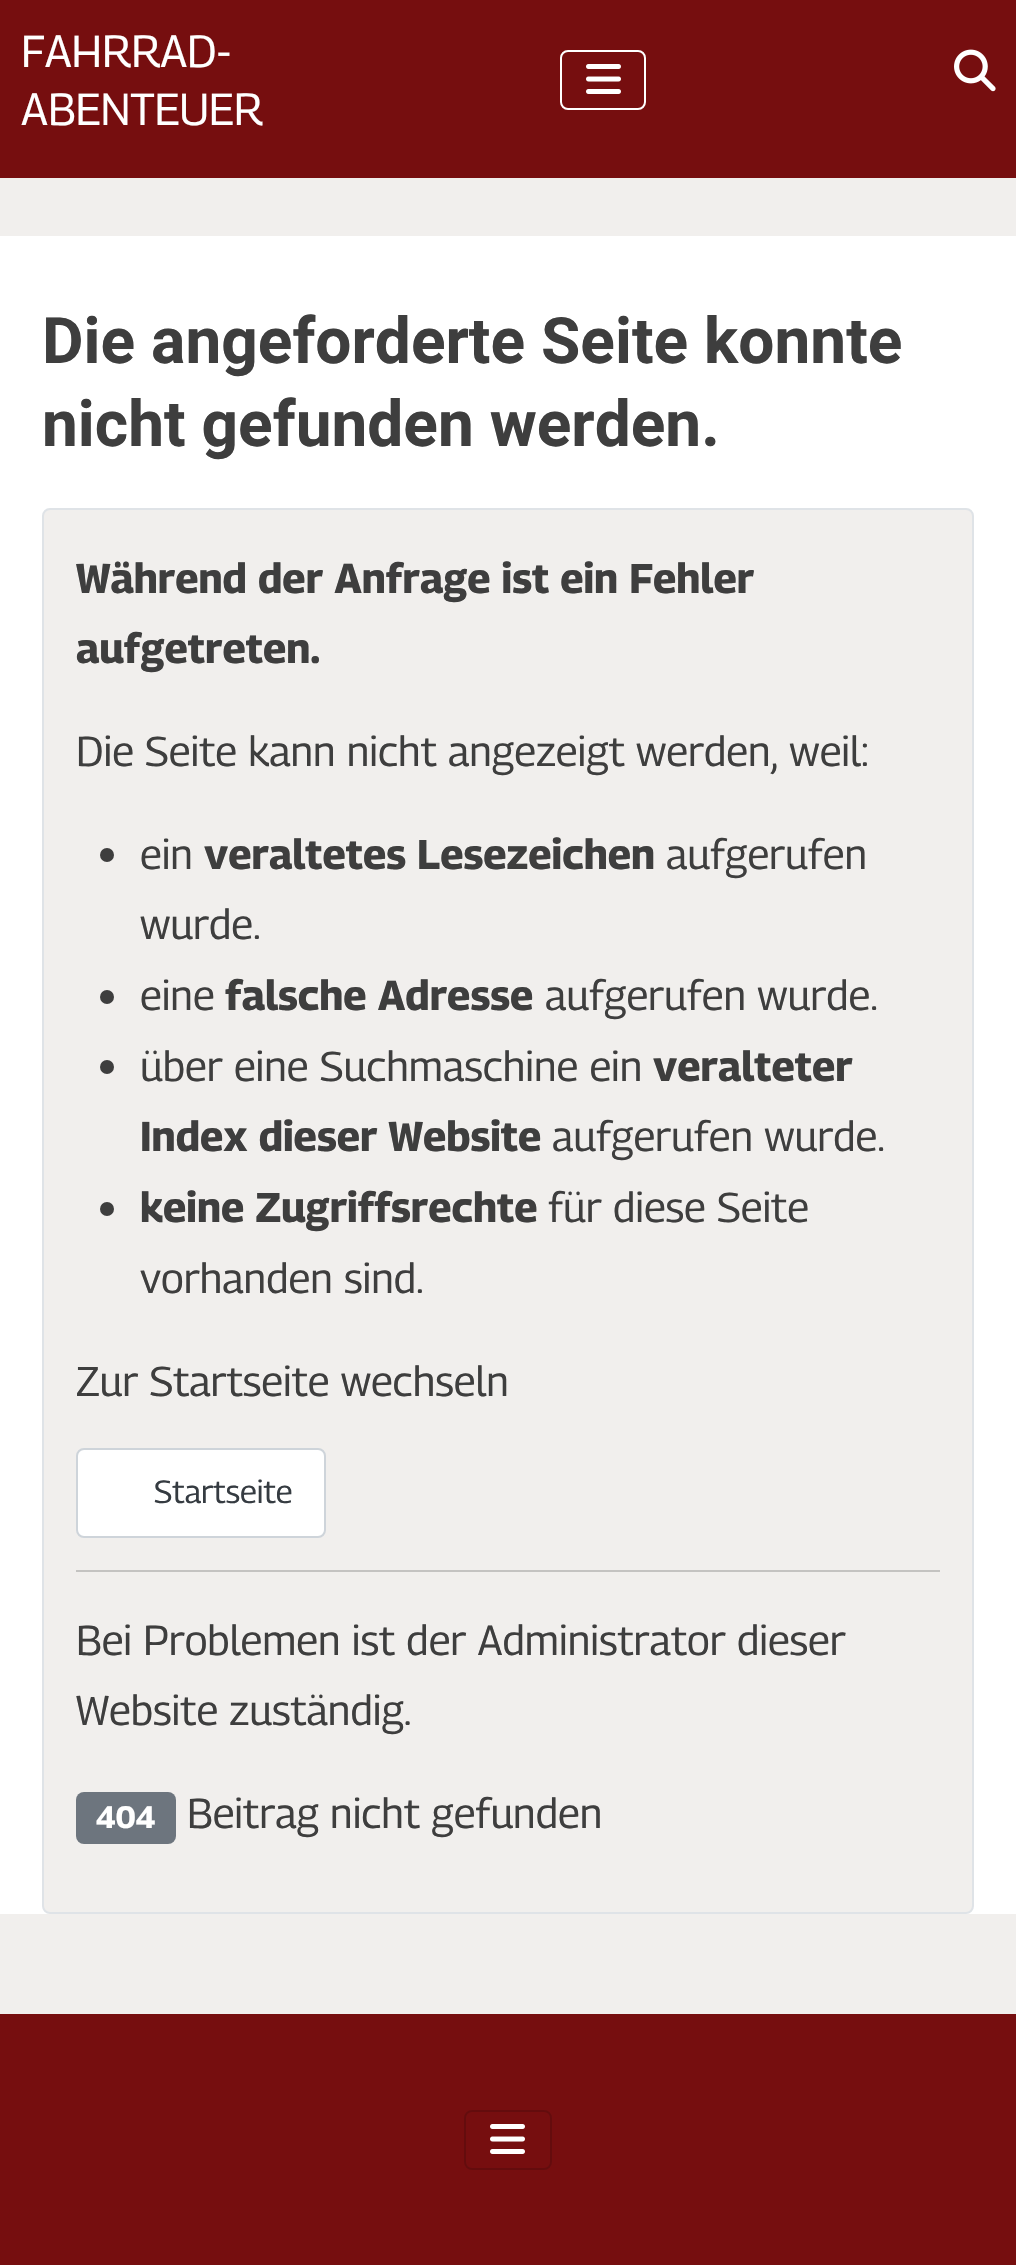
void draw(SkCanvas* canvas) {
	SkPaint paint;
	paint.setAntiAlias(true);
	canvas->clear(0xfff1efed);
	paint.setColor(0xff760e0f);
	canvas->drawRect(SkRect::MakeXYWH(0, 0, 1016, 178), paint);
	SkFont f1(fontMgr->matchFamilyStyle("Georama", SkFontStyle::Normal()), 44.75);
	f1.setSubpixel(true);
	paint.setColor(0xffffffff);
	canvas->drawString("FAHRRAD-", 21, 67, f1, paint);
	canvas->drawString("ABENTEUER", 21, 125, f1, paint);
	paint.setStroke(true);
	paint.setStrokeWidth(2);
	canvas->drawRoundRect(SkRect::MakeXYWH(561, 51, 84, 58), 7, 7, paint);
	canvas->drawImageRect(SkImages::DeferredFromEncodedData(SkData::MakeFromFileName("img1.png")), SkRect::MakeXYWH(586, 64, 35, 30), SkSamplingOptions());
	canvas->drawImageRect(SkImages::DeferredFromEncodedData(SkData::MakeFromFileName("img2.png")), SkRect::MakeXYWH(954, 49, 42, 43), SkSamplingOptions());
	paint.setStroke(false);
	canvas->drawRect(SkRect::MakeXYWH(0, 236, 1016, 1678), paint);
	SkFont f2(fontMgr->matchFamilyStyle("Roboto", SkFontStyle::Bold()), 64);
	f2.setSubpixel(true);
	paint.setColor(0xff3e3e3e);
	canvas->drawString("Die angeforderte Seite konnte", 42, 363, f2, paint);
	canvas->drawString("nicht gefunden werden.", 42, 446, f2, paint);
	paint.setColor(0xfff1efed);
	canvas->drawRoundRect(SkRect::MakeXYWH(43, 509, 930, 1404), 7, 7, paint);
	paint.setStroke(true);
	paint.setColor(0xffdfe3e7);
	canvas->drawRoundRect(SkRect::MakeXYWH(43, 509, 930, 1404), 7, 7, paint);
	SkFont f3(fontMgr->matchFamilyStyle("Georama", SkFontStyle::Bold()), 41.6);
	f3.setSubpixel(true);
	paint.setStroke(false);
	paint.setColor(0xff3e3e3e);
	canvas->drawString("Während der Anfrage ist ein Fehler", 76, 593, f3, paint);
	canvas->drawString("aufgetreten.", 76, 663, f3, paint);
	SkFont f4(fontMgr->matchFamilyStyle("Georama", SkFontStyle::Normal()), 41.6);
	f4.setSubpixel(true);
	canvas->drawString("Die Seite kann nicht angezeigt werden, weil:", 76, 766, f4, paint);
	canvas->drawCircle(107, 855, 7, paint);
	canvas->drawString("ein", 140, 869, f4, paint);
	canvas->drawString("veraltetes Lesezeichen", 204, 869, f3, paint);
	canvas->drawString("aufgerufen", 666, 869, f4, paint);
	canvas->drawString("wurde.", 140, 939, f4, paint);
	canvas->drawCircle(107, 997, 7, paint);
	canvas->drawString("eine", 140, 1010, f4, paint);
	canvas->drawString("falsche Adresse", 225, 1010, f3, paint);
	canvas->drawString("aufgerufen wurde.", 545, 1010, f4, paint);
	canvas->drawCircle(107, 1067, 7, paint);
	canvas->drawString("über eine Suchmaschine ein", 140, 1081, f4, paint);
	canvas->drawString("veralteter", 653, 1081, f3, paint);
	canvas->drawString("Index dieser Website", 140, 1151, f3, paint);
	canvas->drawString("aufgerufen wurde.", 552, 1151, f4, paint);
	canvas->drawCircle(107, 1209, 7, paint);
	canvas->drawString("keine Zugriffsrechte", 140, 1222, f3, paint);
	canvas->drawString("für diese Seite", 548, 1222, f4, paint);
	canvas->drawString("vorhanden sind.", 140, 1293, f4, paint);
	canvas->drawString("Zur Startseite wechseln", 76, 1396, f4, paint);
	paint.setColor(0xffffffff);
	canvas->drawRoundRect(SkRect::MakeXYWH(77, 1449, 248, 88), 7, 7, paint);
	paint.setStroke(true);
	paint.setColor(0xffced4da);
	canvas->drawRoundRect(SkRect::MakeXYWH(77, 1449, 248, 88), 7, 7, paint);
	SkFont f5(fontMgr->matchFamilyStyle("Georama", SkFontStyle::Normal()), 32);
	f5.setSubpixel(true);
	paint.setStroke(false);
	paint.setColor(0xff353b41);
	canvas->drawString("Startseite", 154, 1503, f5, paint);
	paint.setColor(0xffc4c3c1);
	canvas->drawRect(SkRect::MakeXYWH(76, 1570, 864, 2), paint);
	paint.setColor(0xff3e3e3e);
	canvas->drawString("Bei Problemen ist der Administrator dieser", 76, 1655, f4, paint);
	canvas->drawString("Website zuständig.", 76, 1725, f4, paint);
	paint.setColor(0xff6d757e);
	canvas->drawRoundRect(SkRect::MakeXYWH(76, 1792, 100, 52), 8, 8, paint);
	SkFont f6(fontMgr->matchFamilyStyle("Georama", SkFontStyle::Bold()), 31);
	f6.setSubpixel(true);
	paint.setColor(0xffffffff);
	canvas->drawString("404", 96, 1828, f6, paint);
	paint.setColor(0xff3e3e3e);
	canvas->drawString("Beitrag nicht gefunden", 187, 1828, f4, paint);
	paint.setColor(0xff760e0f);
	canvas->drawRect(SkRect::MakeXYWH(0, 2014, 1016, 251), paint);
	paint.setStroke(true);
	paint.setColor(0xff640c0d);
	canvas->drawRoundRect(SkRect::MakeXYWH(465, 2111, 86, 58), 7, 7, paint);
	canvas->drawImageRect(SkImages::DeferredFromEncodedData(SkData::MakeFromFileName("img1.png")), SkRect::MakeXYWH(490, 2124, 35, 30), SkSamplingOptions());
}
